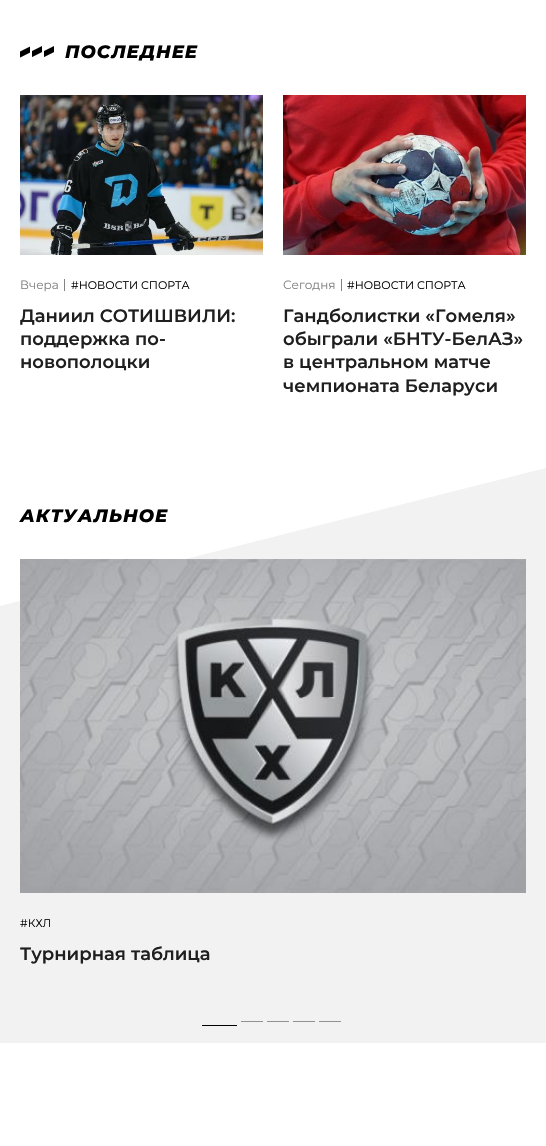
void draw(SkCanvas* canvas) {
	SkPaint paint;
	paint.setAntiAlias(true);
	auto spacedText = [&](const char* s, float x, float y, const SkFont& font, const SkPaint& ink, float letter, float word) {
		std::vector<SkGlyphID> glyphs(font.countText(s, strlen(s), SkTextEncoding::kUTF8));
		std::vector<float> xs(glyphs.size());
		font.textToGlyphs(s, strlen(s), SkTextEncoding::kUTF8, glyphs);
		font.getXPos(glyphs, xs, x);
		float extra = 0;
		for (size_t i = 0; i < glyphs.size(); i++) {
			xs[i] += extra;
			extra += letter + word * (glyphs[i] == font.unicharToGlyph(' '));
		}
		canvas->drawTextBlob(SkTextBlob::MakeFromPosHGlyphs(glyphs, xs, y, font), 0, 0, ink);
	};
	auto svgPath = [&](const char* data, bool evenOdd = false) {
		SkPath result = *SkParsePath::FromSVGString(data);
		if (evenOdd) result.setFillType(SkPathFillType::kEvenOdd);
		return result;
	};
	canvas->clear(0xffffffff);
	canvas->drawImageRect(SkImages::DeferredFromEncodedData(SkData::MakeFromFileName("img1.png")), SkRect::MakeXYWH(20, 46, 34, 12), SkSamplingOptions());
	SkFont f1(fontMgr->matchFamilyStyle("Montserrat", SkFontStyle(800, SkFontStyle::kNormal_Width, SkFontStyle::kItalic_Slant)), 18);
	f1.setSubpixel(true);
	paint.setColor(0xff000000);
	spacedText("ПОСЛЕДНЕЕ", 65, 58, f1, paint, 1, 0);
	canvas->drawImageRect(SkImages::DeferredFromEncodedData(SkData::MakeFromFileName("img2.png")), SkRect::MakeXYWH(20, 95, 243, 160), SkSamplingOptions());
	paint.setColor(0xff828282);
	canvas->drawRect(SkRect::MakeXYWH(64, 279, 1, 12), paint);
	SkFont f2(fontMgr->matchFamilyStyle("Montserrat", SkFontStyle::Normal()), 12);
	f2.setSubpixel(true);
	canvas->drawString("Вчера", 20, 289, f2, paint);
	SkFont f3(fontMgr->matchFamilyStyle("Montserrat", SkFontStyle::Normal()), 11);
	f3.setSubpixel(true);
	paint.setColor(0xff000000);
	canvas->drawString("#НОВОСТИ СПОРТА", 71, 289, f3, paint);
	SkFont f4(fontMgr->matchFamilyStyle("Montserrat", SkFontStyle(600, SkFontStyle::kNormal_Width, SkFontStyle::kUpright_Slant)), 18);
	f4.setSubpixel(true);
	paint.setColor(0xff1f1f1f);
	canvas->drawString("Даниил СОТИШВИЛИ:", 20, 322, f4, paint);
	canvas->drawString("поддержка по-", 20, 345, f4, paint);
	canvas->drawString("новополоцки", 20, 368, f4, paint);
	canvas->drawImageRect(SkImages::DeferredFromEncodedData(SkData::MakeFromFileName("img3.png")), SkRect::MakeXYWH(283, 95, 243, 160), SkSamplingOptions());
	paint.setColor(0xff828282);
	canvas->drawRect(SkRect::MakeXYWH(341, 279, 1, 12), paint);
	canvas->drawString("Сегодня", 283, 289, f2, paint);
	paint.setColor(0xff000000);
	canvas->drawString("#НОВОСТИ СПОРТА", 347, 289, f3, paint);
	paint.setColor(0xff1f1f1f);
	canvas->drawString("Гандболистки «Гомеля»", 283, 322, f4, paint);
	canvas->drawString("обыграли «БНТУ-БелАЗ»", 283, 345, f4, paint);
	canvas->drawString("в центральном матче", 283, 368, f4, paint);
	canvas->drawString("чемпионата Беларуси", 283, 392, f4, paint);
	paint.setColor(0xfff2f2f2);
	canvas->drawPath(svgPath("M0 606V1043H546V468Z"), paint);
	paint.setColor(0xff000000);
	spacedText("АКТУАЛЬНОЕ", 20, 522, f1, paint, 1, 0);
	canvas->drawImageRect(SkImages::DeferredFromEncodedData(SkData::MakeFromFileName("img4.png")), SkRect::MakeXYWH(20, 559, 506, 334), SkSamplingOptions());
	canvas->drawString("#КХЛ", 20, 927, f3, paint);
	paint.setColor(0xff1f1f1f);
	canvas->drawString("Турнирная таблица", 20, 960, f4, paint);
	paint.setColor(0xff919191);
	canvas->drawRect(SkRect::MakeXYWH(241, 1021, 22, 1), paint);
	canvas->drawRect(SkRect::MakeXYWH(267, 1021, 22, 1), paint);
	canvas->drawRect(SkRect::MakeXYWH(293, 1021, 22, 1), paint);
	canvas->drawRect(SkRect::MakeXYWH(319, 1021, 22, 1), paint);
	paint.setColor(0xff000000);
	canvas->drawRect(SkRect::MakeXYWH(202, 1025, 35, 1), paint);
}
